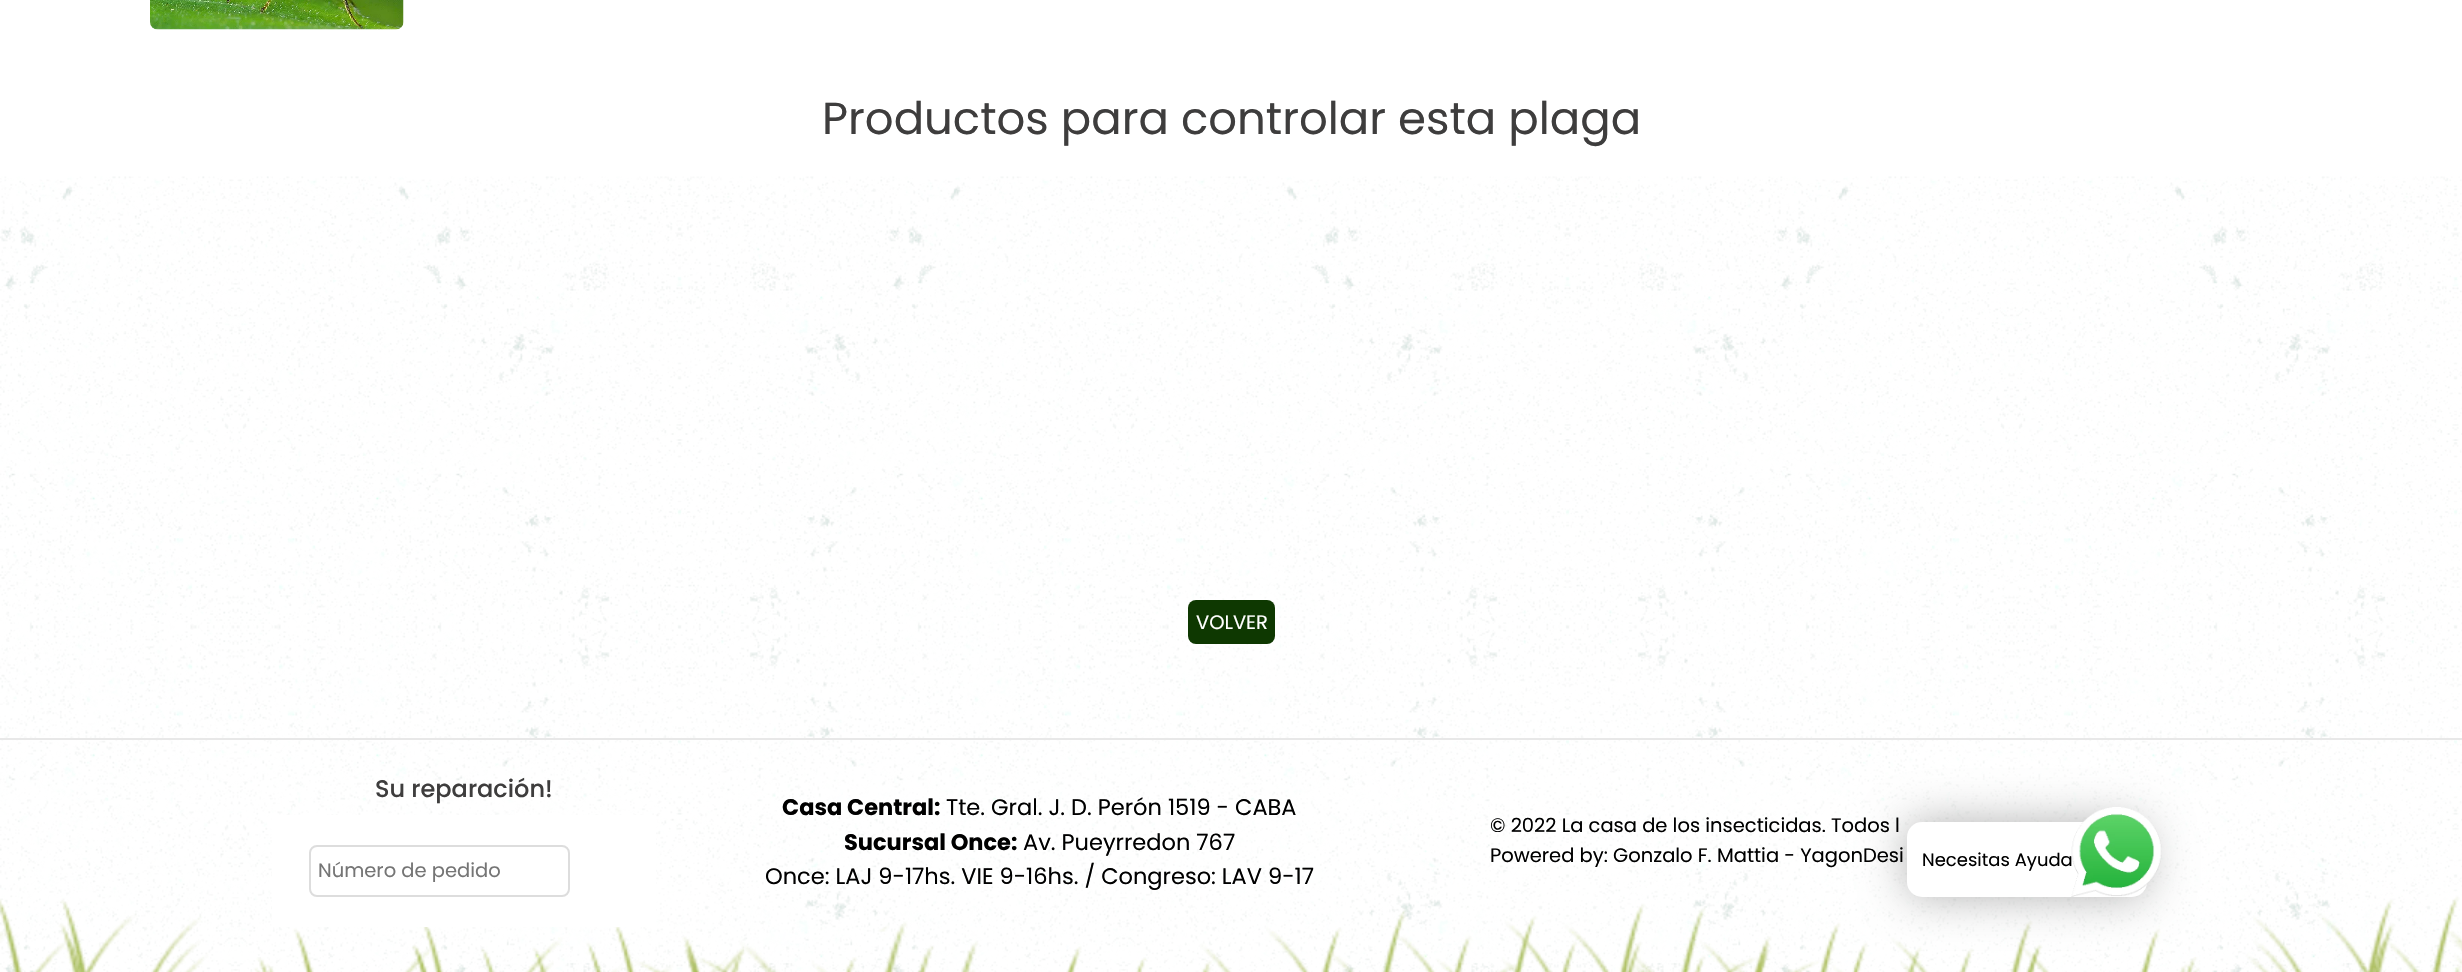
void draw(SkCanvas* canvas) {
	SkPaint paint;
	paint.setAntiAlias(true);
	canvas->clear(0xffffffff);
	canvas->drawImageRect(SkImages::DeferredFromEncodedData(SkData::MakeFromFileName("img1.png")), SkRect::MakeXYWH(0, 176, 2462, 796), SkSamplingOptions());
	canvas->drawImageRect(SkImages::DeferredFromEncodedData(SkData::MakeFromFileName("img2.png")), SkRect::MakeXYWH(150, 0, 254, 30), SkSamplingOptions());
	SkFont f1(fontMgr->matchFamilyStyle("Poppins", SkFontStyle::Normal()), 45);
	f1.setSubpixel(true);
	paint.setColor(0xff3e3d3d);
	canvas->drawString("Productos para controlar esta plaga", 822, 134, f1, paint);
	paint.setColor(0xff0e3801);
	canvas->drawRoundRect(SkRect::MakeXYWH(1188, 600, 87, 44), 8, 8, paint);
	SkFont f2(fontMgr->matchFamilyStyle("Poppins", SkFontStyle::Normal()), 19.5);
	f2.setSubpixel(true);
	paint.setColor(0xffffffff);
	canvas->drawString("VOLVER", 1196, 629, f2, paint);
	paint.setColor(0xffe8e8e8);
	canvas->drawRect(SkRect::MakeXYWH(0, 738, 2462, 2), paint);
	SkFont f3(fontMgr->matchFamilyStyle("Poppins", SkFontStyle(500, SkFontStyle::kNormal_Width, SkFontStyle::kUpright_Slant)), 24);
	f3.setSubpixel(true);
	paint.setColor(0xff3e3d3d);
	canvas->drawString("Su reparación!", 375, 797, f3, paint);
	paint.setColor(0xffffffff);
	canvas->drawRect(SkRect::MakeXYWH(272, 815, 384, 112), paint);
	paint.setStroke(true);
	paint.setStrokeWidth(2);
	paint.setColor(0xffdddddd);
	canvas->drawRoundRect(SkRect::MakeXYWH(310, 846, 259, 50), 7, 7, paint);
	paint.setStroke(false);
	paint.setColor(0xff757575);
	canvas->drawString("Número de pedido", 318, 877, f2, paint);
	SkFont f4(fontMgr->matchFamilyStyle("Poppins", SkFontStyle::Bold()), 22.5);
	f4.setSubpixel(true);
	paint.setColor(0xff000000);
	canvas->drawString("Casa Central:", 782, 815, f4, paint);
	SkFont f5(fontMgr->matchFamilyStyle("Poppins", SkFontStyle::Normal()), 22.5);
	f5.setSubpixel(true);
	canvas->drawString("Tte. Gral. J. D. Perón 1519 - CABA", 946, 815, f5, paint);
	canvas->drawString("Sucursal Once:", 844, 850, f4, paint);
	canvas->drawString("Av. Pueyrredon 767", 1023, 850, f5, paint);
	canvas->drawString("Once: LAJ 9-17hs. VIE 9-16hs. / Congreso: LAV 9-17", 765, 884, f5, paint);
	canvas->drawString("© 2022 La casa de los insecticidas. Todos l", 1490, 832, f2, paint);
	canvas->drawString("Powered by: Gonzalo F. Mattia - YagonDesi", 1490, 862, f2, paint);
	paint.setColor(0x4d000000);
	paint.setMaskFilter(SkMaskFilter::MakeBlur(kNormal_SkBlurStyle, 22.5));
	canvas->drawRoundRect(SkRect::MakeXYWH(1907, 822, 240, 75), 15, 15, paint);
	paint.setMaskFilter(nullptr);
	paint.setColor(0xffffffff);
	canvas->drawRoundRect(SkRect::MakeXYWH(1907, 822, 240, 75), 15, 15, paint);
	SkFont f6(fontMgr->matchFamilyStyle("Poppins", SkFontStyle::Normal()), 18);
	f6.setSubpixel(true);
	paint.setColor(0xff000000);
	canvas->drawString("Necesitas Ayuda", 1922, 866, f6, paint);
	canvas->drawImageRect(SkImages::DeferredFromEncodedData(SkData::MakeFromFileName("img3.png")), SkRect::MakeXYWH(2071, 807, 91, 90), SkSamplingOptions());
}
